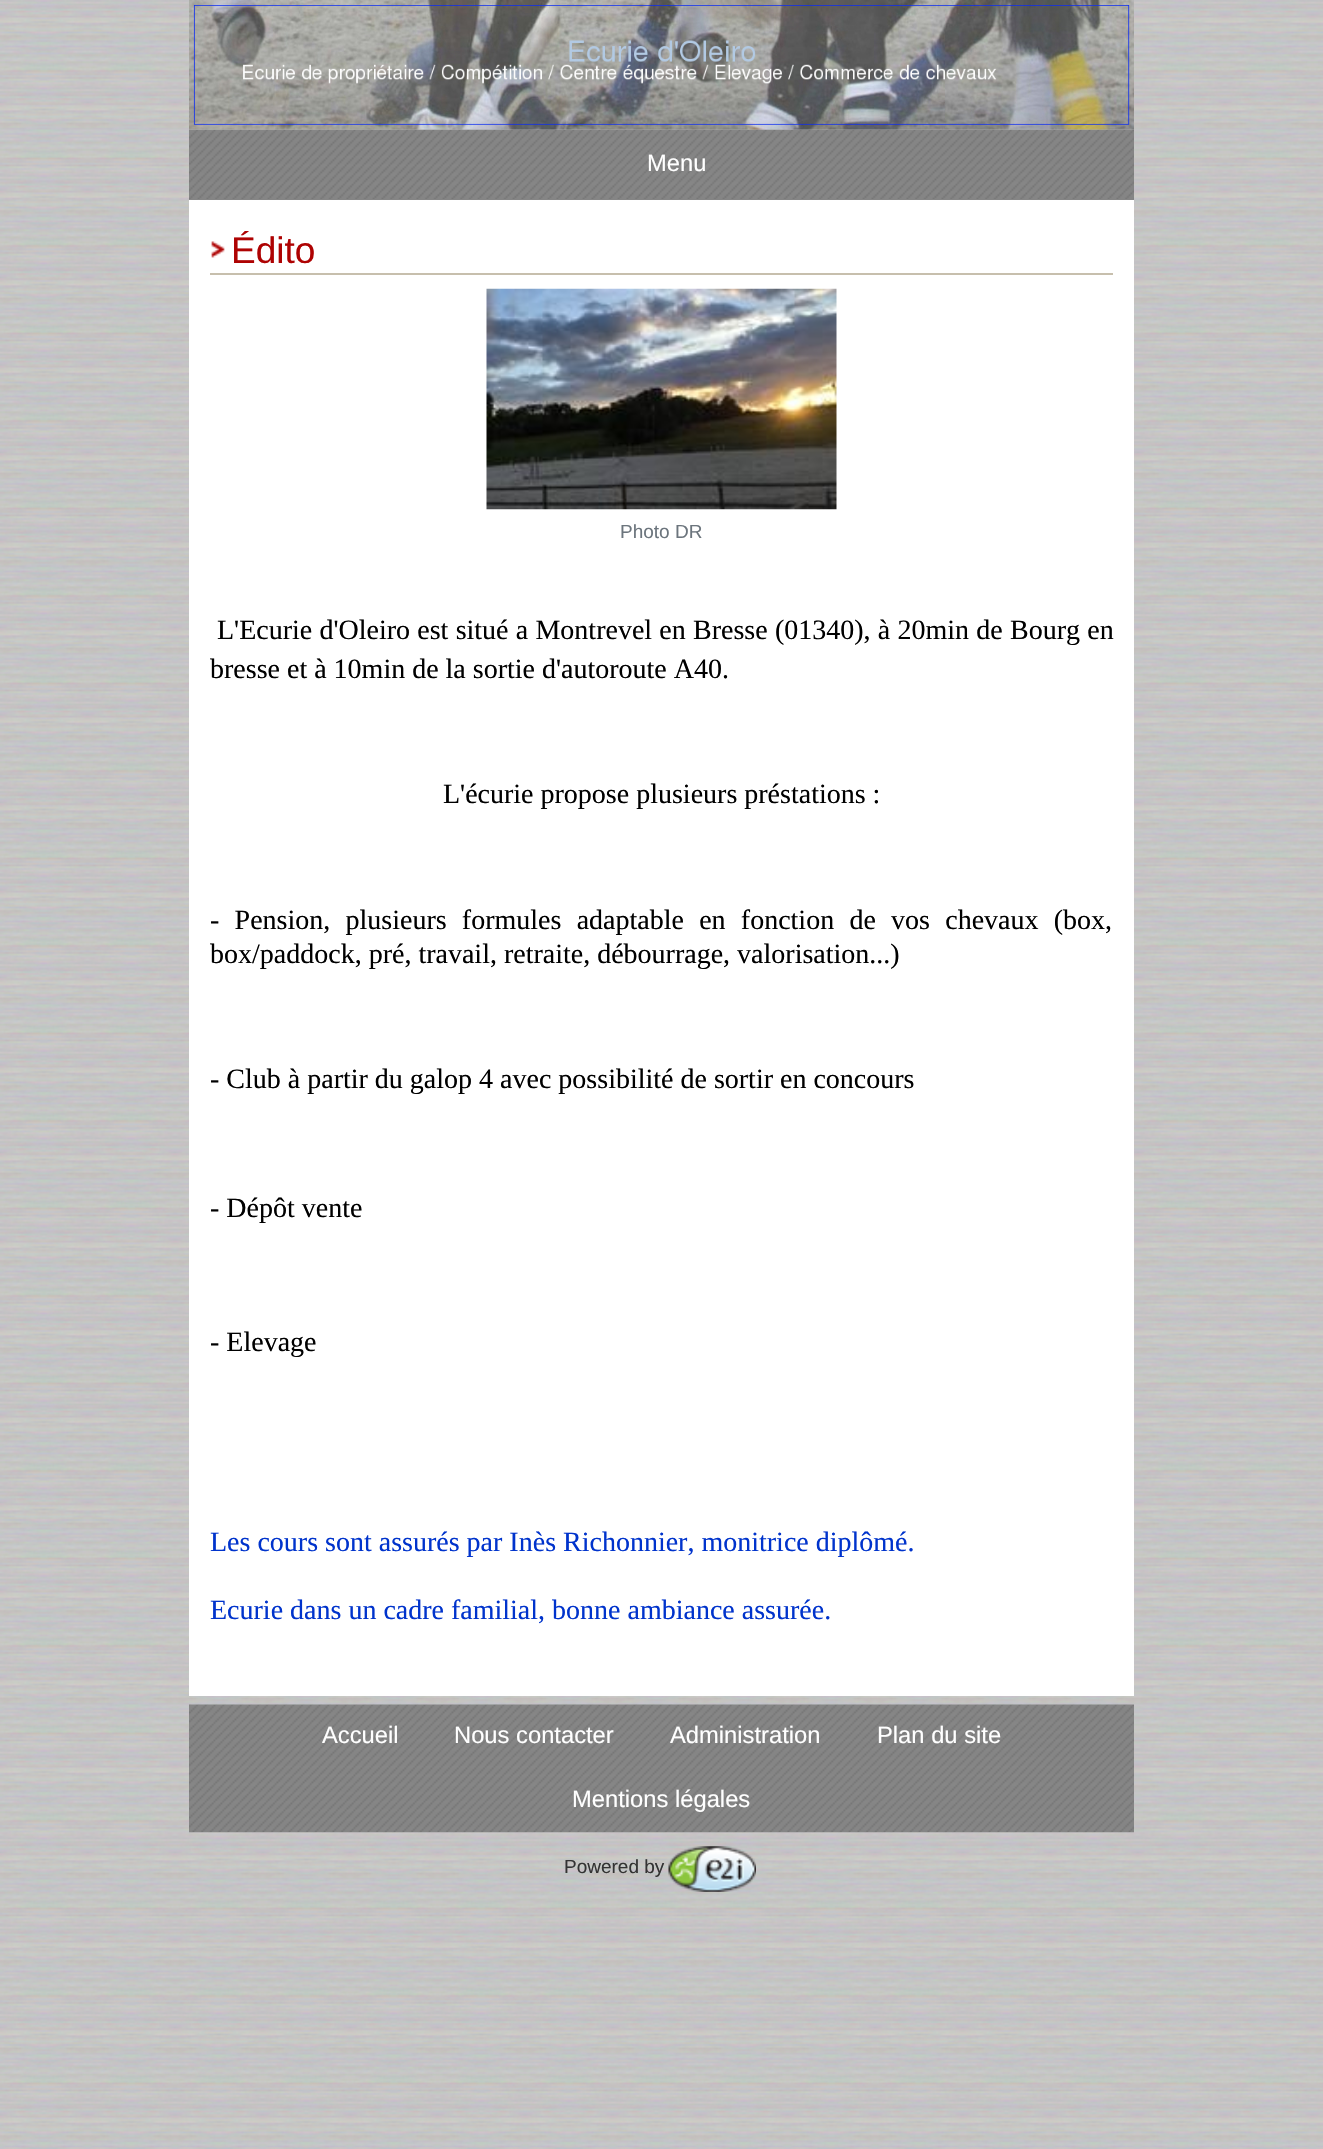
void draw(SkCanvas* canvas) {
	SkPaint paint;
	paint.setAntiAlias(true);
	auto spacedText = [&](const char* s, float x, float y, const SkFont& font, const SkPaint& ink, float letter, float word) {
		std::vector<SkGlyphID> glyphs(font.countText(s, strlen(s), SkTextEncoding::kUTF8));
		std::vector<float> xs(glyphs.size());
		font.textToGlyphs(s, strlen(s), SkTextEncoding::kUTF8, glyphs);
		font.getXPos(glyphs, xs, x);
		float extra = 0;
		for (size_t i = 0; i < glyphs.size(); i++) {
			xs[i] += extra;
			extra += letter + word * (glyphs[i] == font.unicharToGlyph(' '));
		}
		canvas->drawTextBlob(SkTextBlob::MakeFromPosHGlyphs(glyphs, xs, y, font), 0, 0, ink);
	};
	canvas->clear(0xffffffff);
	canvas->drawImageRect(SkImages::DeferredFromEncodedData(SkData::MakeFromFileName("img1.png")), SkRect::MakeXYWH(0, 0, 1323, 2149), SkSamplingOptions());
	canvas->drawImageRect(SkImages::DeferredFromEncodedData(SkData::MakeFromFileName("img3.png")), SkRect::MakeXYWH(189, 129, 945, 70), SkSamplingOptions());
	canvas->drawImageRect(SkImages::DeferredFromEncodedData(SkData::MakeFromFileName("img2.png")), SkRect::MakeXYWH(189, 0, 945, 130), SkSamplingOptions());
	paint.setColor(0xff858585);
	canvas->drawRect(SkRect::MakeXYWH(189, 199, 945, 1), paint);
	SkFont f1(fontMgr->matchFamilyStyle("Liberation Sans", SkFontStyle::Normal()), 23.75);
	f1.setSubpixel(true);
	paint.setColor(0xffffffff);
	canvas->drawString("Menu", 647, 171, f1, paint);
	canvas->drawRect(SkRect::MakeXYWH(189, 200, 945, 1496), paint);
	canvas->drawImageRect(SkImages::DeferredFromEncodedData(SkData::MakeFromFileName("img4.png")), SkRect::MakeXYWH(211, 241, 14, 17), SkSamplingOptions());
	paint.setColor(0xffc7bfad);
	canvas->drawRect(SkRect::MakeXYWH(210, 273, 903, 2), paint);
	SkFont f2(fontMgr->matchFamilyStyle("Liberation Sans", SkFontStyle::Normal()), 37);
	f2.setSubpixel(true);
	paint.setColor(0xffae0202);
	canvas->drawString("Édito", 231, 263, f2, paint);
	canvas->drawImageRect(SkImages::DeferredFromEncodedData(SkData::MakeFromFileName("img5.png")), SkRect::MakeXYWH(486, 288, 351, 222), SkSamplingOptions());
	SkFont f3(fontMgr->matchFamilyStyle("Liberation Sans", SkFontStyle::Normal()), 19);
	f3.setSubpixel(true);
	paint.setColor(0xff6c757d);
	canvas->drawString("Photo DR", 620, 538, f3, paint);
	SkFont f4(fontMgr->matchFamilyStyle("Liberation Serif", SkFontStyle::Normal()), 28);
	f4.setSubpixel(true);
	paint.setColor(0xff000000);
	spacedText("L'Ecurie d'Oleiro est situé a Montrevel en Bresse (01340), à 20min de Bourg en", 217, 639, f4, paint, 0, 0.25);
	canvas->drawString("bresse et à 10min de la sortie d'autoroute A40.", 210, 678, f4, paint);
	canvas->drawString("L'écurie propose plusieurs préstations :", 443, 803, f4, paint);
	spacedText("- Pension, plusieurs formules adaptable en fonction de vos chevaux (box,", 210, 929, f4, paint, 0, 8.25);
	canvas->drawString("box/paddock, pré, travail, retraite, débourrage, valorisation...)", 210, 963, f4, paint);
	canvas->drawString("- Club à partir du galop 4 avec possibilité de sortir en concours", 210, 1088, f4, paint);
	canvas->drawString("- Dépôt vente", 210, 1217, f4, paint);
	canvas->drawString("- Elevage", 210, 1351, f4, paint);
	paint.setColor(0xff0033cc);
	canvas->drawString("Les cours sont assurés par Inès Richonnier, monitrice diplômé.", 210, 1551, f4, paint);
	canvas->drawString("Ecurie dans un cadre familial, bonne ambiance assurée.", 210, 1619, f4, paint);
	canvas->drawImageRect(SkImages::DeferredFromEncodedData(SkData::MakeFromFileName("img6.png")), SkRect::MakeXYWH(189, 1704, 945, 129), SkSamplingOptions());
	paint.setColor(0xffffffff);
	canvas->drawString("Accueil", 322, 1743, f1, paint);
	canvas->drawString("Nous contacter", 454, 1743, f1, paint);
	canvas->drawString("Administration", 670, 1743, f1, paint);
	canvas->drawString("Plan du site", 877, 1743, f1, paint);
	canvas->drawString("Mentions légales", 572, 1807, f1, paint);
	paint.setColor(0xff333333);
	canvas->drawString("Powered by", 564, 1873, f3, paint);
	canvas->drawImageRect(SkImages::DeferredFromEncodedData(SkData::MakeFromFileName("img7.png")), SkRect::MakeXYWH(668, 1846, 88, 46), SkSamplingOptions());
}
